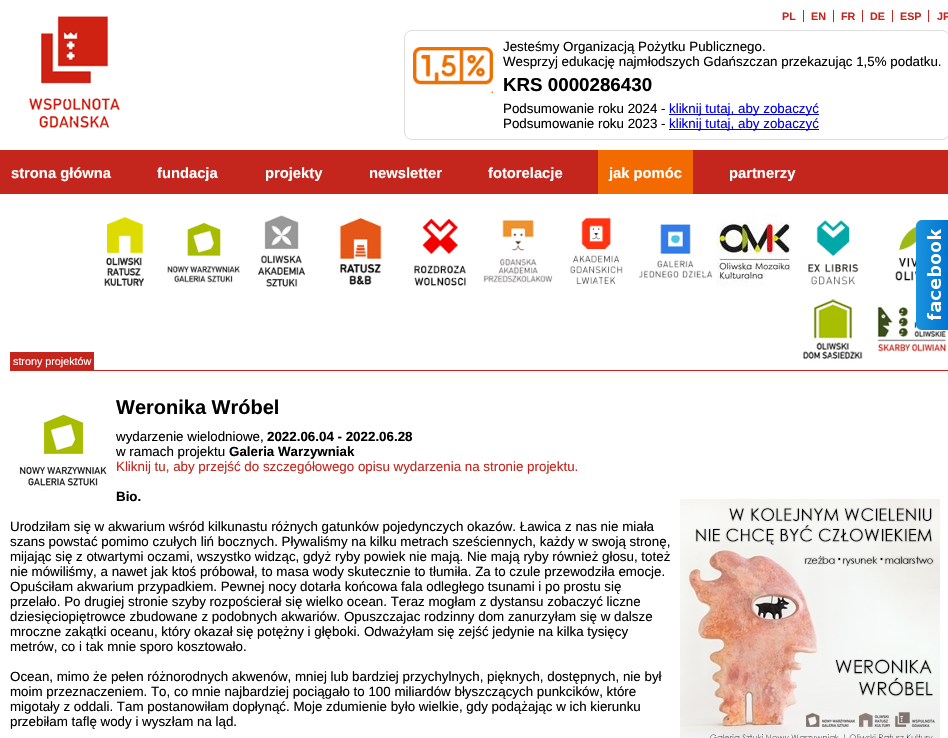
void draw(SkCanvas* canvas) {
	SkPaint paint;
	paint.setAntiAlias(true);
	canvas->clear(0xffffffff);
	canvas->drawImageRect(SkImages::DeferredFromEncodedData(SkData::MakeFromFileName("img1.png")), SkRect::MakeXYWH(29, 16, 91, 112), SkSamplingOptions());
	SkFont f1(fontMgr->matchFamilyStyle("Liberation Sans", SkFontStyle::Bold()), 10.75);
	f1.setSubpixel(true);
	paint.setColor(0xffc4261d);
	canvas->drawString("PL", 782, 20, f1, paint);
	canvas->drawRect(SkRect::MakeXYWH(803, 10, 1, 12), paint);
	canvas->drawString("EN", 811, 20, f1, paint);
	canvas->drawRect(SkRect::MakeXYWH(833, 10, 1, 12), paint);
	canvas->drawString("FR", 841, 20, f1, paint);
	canvas->drawRect(SkRect::MakeXYWH(862, 10, 1, 12), paint);
	canvas->drawString("DE", 870, 20, f1, paint);
	canvas->drawRect(SkRect::MakeXYWH(892, 10, 1, 12), paint);
	canvas->drawString("ESP", 900, 20, f1, paint);
	canvas->drawRect(SkRect::MakeXYWH(928, 10, 1, 12), paint);
	canvas->drawString("JP", 937, 20, f1, paint);
	paint.setStroke(true);
	paint.setStrokeWidth(1);
	paint.setColor(0xffdedede);
	canvas->drawRoundRect(SkRect::MakeXYWH(404.5, 30.5, 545, 109), 7.5, 7.5, paint);
	canvas->drawImageRect(SkImages::DeferredFromEncodedData(SkData::MakeFromFileName("img2.png")), SkRect::MakeXYWH(413, 47, 80, 46), SkSamplingOptions());
	SkFont f2(fontMgr->matchFamilyStyle("Liberation Sans", SkFontStyle::Normal()), 13.35);
	f2.setSubpixel(true);
	paint.setStroke(false);
	paint.setColor(0xff000000);
	canvas->drawString("Jesteśmy Organizacją Pożytku Publicznego.", 503, 51, f2, paint);
	canvas->drawString("Wesprzyj edukację najmłodszych Gdańszczan przekazując 1,5% podatku.", 503, 66, f2, paint);
	SkFont f3(fontMgr->matchFamilyStyle("Liberation Sans", SkFontStyle::Bold()), 18.75);
	f3.setSubpixel(true);
	canvas->drawString("KRS 0000286430", 503, 91, f3, paint);
	canvas->drawString("Podsumowanie roku 2024 -", 503, 113, f2, paint);
	paint.setColor(0xff0000ee);
	canvas->drawRect(SkRect::MakeXYWH(669, 114, 150, 1), paint);
	canvas->drawString("kliknij tutaj, aby zobaczyć", 669, 113, f2, paint);
	paint.setColor(0xff000000);
	canvas->drawString("Podsumowanie roku 2023 -", 503, 128, f2, paint);
	paint.setColor(0xff0000ee);
	canvas->drawRect(SkRect::MakeXYWH(669, 129, 150, 1), paint);
	canvas->drawString("kliknij tutaj, aby zobaczyć", 669, 128, f2, paint);
	paint.setColor(0xffc4261d);
	canvas->drawRect(SkRect::MakeXYWH(0, 150, 948, 44), paint);
	SkFont f4(fontMgr->matchFamilyStyle("Liberation Sans", SkFontStyle::Bold()), 14.75);
	f4.setSubpixel(true);
	paint.setColor(0xffffffff);
	canvas->drawString("strona główna", 11, 178, f4, paint);
	canvas->drawString("fundacja", 157, 178, f4, paint);
	canvas->drawString("projekty", 265, 178, f4, paint);
	canvas->drawString("newsletter", 369, 178, f4, paint);
	canvas->drawString("fotorelacje", 488, 178, f4, paint);
	paint.setColor(0xfff26a00);
	canvas->drawRect(SkRect::MakeXYWH(598, 150, 95, 44), paint);
	paint.setColor(0xffffffff);
	canvas->drawString("jak pomóc", 609, 178, f4, paint);
	canvas->drawString("partnerzy", 729, 178, f4, paint);
	canvas->drawImageRect(SkImages::DeferredFromEncodedData(SkData::MakeFromFileName("img14.png")), SkRect::MakeXYWH(895, 223, 22, 58), SkSamplingOptions());
	canvas->drawImageRect(SkImages::DeferredFromEncodedData(SkData::MakeFromFileName("img16.png")), SkRect::MakeXYWH(877, 306, 70, 46), SkSamplingOptions());
	canvas->drawImageRect(SkImages::DeferredFromEncodedData(SkData::MakeFromFileName("img3.png")), SkRect::MakeXYWH(916, 220, 32, 110), SkSamplingOptions());
	paint.setColor(0xffc4261d);
	canvas->drawRect(SkRect::MakeXYWH(10, 370, 938, 1), paint);
	canvas->drawImageRect(SkImages::DeferredFromEncodedData(SkData::MakeFromFileName("img4.png")), SkRect::MakeXYWH(104, 217, 41, 69), SkSamplingOptions());
	canvas->drawImageRect(SkImages::DeferredFromEncodedData(SkData::MakeFromFileName("img5.png")), SkRect::MakeXYWH(167, 222, 73, 61), SkSamplingOptions());
	canvas->drawImageRect(SkImages::DeferredFromEncodedData(SkData::MakeFromFileName("img6.png")), SkRect::MakeXYWH(258, 215, 48, 72), SkSamplingOptions());
	canvas->drawImageRect(SkImages::DeferredFromEncodedData(SkData::MakeFromFileName("img7.png")), SkRect::MakeXYWH(336, 214, 47, 72), SkSamplingOptions());
	canvas->drawImageRect(SkImages::DeferredFromEncodedData(SkData::MakeFromFileName("img8.png")), SkRect::MakeXYWH(414, 218, 53, 68), SkSamplingOptions());
	canvas->drawImageRect(SkImages::DeferredFromEncodedData(SkData::MakeFromFileName("img9.png")), SkRect::MakeXYWH(483, 219, 70, 64), SkSamplingOptions());
	canvas->drawImageRect(SkImages::DeferredFromEncodedData(SkData::MakeFromFileName("img10.png")), SkRect::MakeXYWH(570, 218, 53, 66), SkSamplingOptions());
	canvas->drawImageRect(SkImages::DeferredFromEncodedData(SkData::MakeFromFileName("img11.png")), SkRect::MakeXYWH(639, 223, 74, 56), SkSamplingOptions());
	canvas->drawImageRect(SkImages::DeferredFromEncodedData(SkData::MakeFromFileName("img12.png")), SkRect::MakeXYWH(717, 214, 75, 72), SkSamplingOptions());
	canvas->drawImageRect(SkImages::DeferredFromEncodedData(SkData::MakeFromFileName("img13.png")), SkRect::MakeXYWH(808, 220, 51, 65), SkSamplingOptions());
	canvas->drawImageRect(SkImages::DeferredFromEncodedData(SkData::MakeFromFileName("img15.png")), SkRect::MakeXYWH(803, 293, 60, 70), SkSamplingOptions());
	canvas->drawRect(SkRect::MakeXYWH(10, 352, 84, 18), paint);
	SkFont f5(fontMgr->matchFamilyStyle("Liberation Sans", SkFontStyle::Normal()), 10.75);
	f5.setSubpixel(true);
	paint.setColor(0xffffffff);
	canvas->drawString("strony projektów", 13, 365, f5, paint);
	SkFont f6(fontMgr->matchFamilyStyle("Liberation Sans", SkFontStyle::Bold()), 20);
	f6.setSubpixel(true);
	paint.setColor(0xff000000);
	canvas->drawString("Weronika Wróbel", 116, 414, f6, paint);
	canvas->drawImageRect(SkImages::DeferredFromEncodedData(SkData::MakeFromFileName("img17.png")), SkRect::MakeXYWH(19, 414, 88, 77), SkSamplingOptions());
	canvas->drawString("wydarzenie wielodniowe,", 116, 441, f2, paint);
	SkFont f7(fontMgr->matchFamilyStyle("Liberation Sans", SkFontStyle::Bold()), 13.35);
	f7.setSubpixel(true);
	canvas->drawString("2022.06.04 - 2022.06.28", 267, 441, f7, paint);
	canvas->drawString("w ramach projektu", 116, 456, f2, paint);
	canvas->drawString("Galeria Warzywniak", 229, 456, f7, paint);
	paint.setColor(0xffc4261d);
	canvas->drawString("Kliknij tu, aby przejść do szczegółowego opisu wydarzenia na stronie projektu.", 116, 471, f2, paint);
	paint.setColor(0xff000000);
	canvas->drawString("Bio.", 116, 501, f7, paint);
	canvas->drawString("Urodziłam się w akwarium wśród kilkunastu różnych gatunków pojedynczych okazów. Ławica z nas nie miała", 10, 531, f2, paint);
	canvas->drawImageRect(SkImages::DeferredFromEncodedData(SkData::MakeFromFileName("img18.png")), SkRect::MakeXYWH(680, 499, 260, 239), SkSamplingOptions());
	canvas->drawString("szans powstać pomimo czułych liń bocznych. Pływaliśmy na kilku metrach sześciennych, każdy w swoją stronę,", 10, 546, f2, paint);
	canvas->drawString("mijając się z otwartymi oczami, wszystko widząc, gdyż ryby powiek nie mają. Nie mają ryby również głosu, toteż", 10, 561, f2, paint);
	canvas->drawString("nie mówiliśmy, a nawet jak ktoś próbował, to masa wody skutecznie to tłumiła. Za to czule przewodziła emocje.", 10, 576, f2, paint);
	canvas->drawString("Opuściłam akwarium przypadkiem. Pewnej nocy dotarła końcowa fala odległego tsunami i po prostu się", 10, 591, f2, paint);
	canvas->drawString("przelało. Po drugiej stronie szyby rozpościerał się wielko ocean. Teraz mogłam z dystansu zobaczyć liczne", 10, 606, f2, paint);
	canvas->drawString("dziesięciopiętrowce zbudowane z podobnych akwariów. Opuszczajac rodzinny dom zanurzyłam się w dalsze", 10, 621, f2, paint);
	canvas->drawString("mroczne zakątki oceanu, który okazał się potężny i głęboki. Odważyłam się zejść jedynie na kilka tysięcy", 10, 636, f2, paint);
	canvas->drawString("metrów, co i tak mnie sporo kosztowało.", 10, 651, f2, paint);
	canvas->drawString("Ocean, mimo że pełen różnorodnych akwenów, mniej lub bardziej przychylnych, pięknych, dostępnych, nie był", 10, 681, f2, paint);
	canvas->drawString("moim przeznaczeniem. To, co mnie najbardziej pociągało to 100 miliardów błyszczących punkcików, które", 10, 696, f2, paint);
	canvas->drawString("migotały z oddali. Tam postanowiłam dopłynąć. Moje zdumienie było wielkie, gdy podążając w ich kierunku", 10, 711, f2, paint);
	canvas->drawString("przebiłam taflę wody i wyszłam na ląd.", 10, 726, f2, paint);
}
